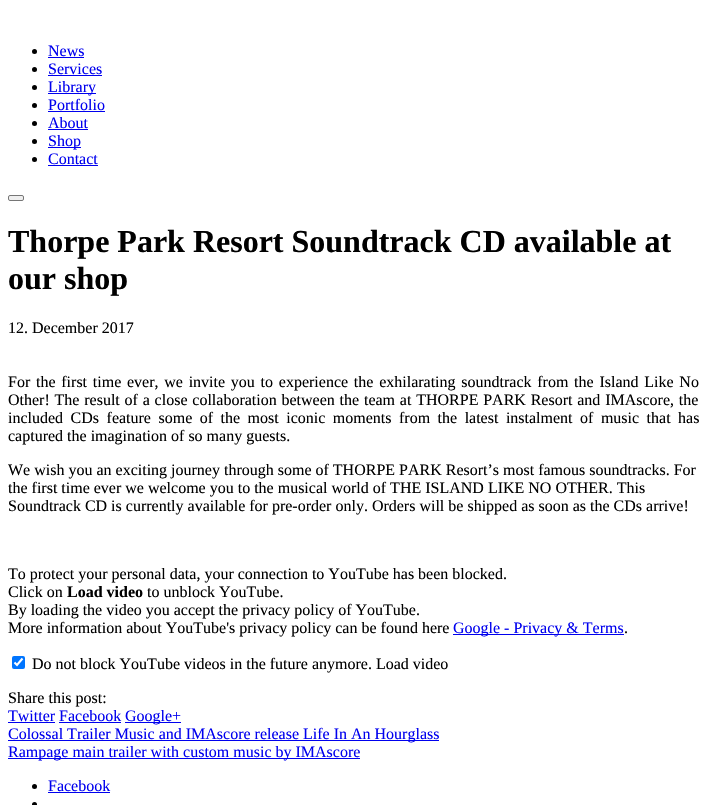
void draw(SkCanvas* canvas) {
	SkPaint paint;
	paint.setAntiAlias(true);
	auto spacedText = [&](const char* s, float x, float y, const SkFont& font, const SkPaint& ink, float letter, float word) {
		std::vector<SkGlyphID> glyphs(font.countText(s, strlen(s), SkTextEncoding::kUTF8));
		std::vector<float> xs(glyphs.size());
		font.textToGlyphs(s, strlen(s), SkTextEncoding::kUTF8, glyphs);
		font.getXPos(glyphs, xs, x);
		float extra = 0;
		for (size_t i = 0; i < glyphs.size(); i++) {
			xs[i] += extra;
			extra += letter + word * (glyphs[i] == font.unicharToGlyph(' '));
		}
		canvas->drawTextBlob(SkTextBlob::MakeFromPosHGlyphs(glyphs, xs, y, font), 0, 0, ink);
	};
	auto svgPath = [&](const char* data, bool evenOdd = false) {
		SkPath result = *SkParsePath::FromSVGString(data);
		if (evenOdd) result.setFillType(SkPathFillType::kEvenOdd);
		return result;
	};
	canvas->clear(0xffffffff);
	paint.setColor(0xff000000);
	canvas->drawCircle(34.5, 51.5, 2.5, paint);
	SkFont f1(fontMgr->matchFamilyStyle("Liberation Serif", SkFontStyle::Normal()), 16);
	f1.setSubpixel(true);
	paint.setColor(0xff0000ee);
	canvas->drawString("News", 48, 56, f1, paint);
	canvas->drawRect(SkRect::MakeXYWH(48, 57, 36, 1), paint);
	paint.setColor(0xff000000);
	canvas->drawCircle(34.5, 69.5, 2.5, paint);
	paint.setColor(0xff0000ee);
	canvas->drawString("Services", 48, 74, f1, paint);
	canvas->drawRect(SkRect::MakeXYWH(48, 75, 54, 1), paint);
	paint.setColor(0xff000000);
	canvas->drawCircle(34.5, 87.5, 2.5, paint);
	paint.setColor(0xff0000ee);
	canvas->drawRect(SkRect::MakeXYWH(48, 93, 48, 1), paint);
	canvas->drawString("Library", 48, 92, f1, paint);
	paint.setColor(0xff000000);
	canvas->drawCircle(34.5, 105.5, 2.5, paint);
	paint.setColor(0xff0000ee);
	canvas->drawString("Portfolio", 48, 110, f1, paint);
	canvas->drawRect(SkRect::MakeXYWH(48, 111, 57, 1), paint);
	paint.setColor(0xff000000);
	canvas->drawCircle(34.5, 123.5, 2.5, paint);
	paint.setColor(0xff0000ee);
	canvas->drawString("About", 48, 128, f1, paint);
	canvas->drawRect(SkRect::MakeXYWH(48, 129, 40, 1), paint);
	paint.setColor(0xff000000);
	canvas->drawCircle(34.5, 141.5, 2.5, paint);
	paint.setColor(0xff0000ee);
	canvas->drawRect(SkRect::MakeXYWH(48, 147, 33, 1), paint);
	canvas->drawString("Shop", 48, 146, f1, paint);
	paint.setColor(0xff000000);
	canvas->drawCircle(34.5, 159.5, 2.5, paint);
	paint.setColor(0xff0000ee);
	canvas->drawString("Contact", 48, 164, f1, paint);
	canvas->drawRect(SkRect::MakeXYWH(48, 165, 50, 1), paint);
	paint.setColor(0xffefefef);
	canvas->drawRoundRect(SkRect::MakeXYWH(8.5, 195.5, 15, 5), 1.5, 1.5, paint);
	paint.setStroke(true);
	paint.setStrokeWidth(1);
	paint.setColor(0xff767676);
	canvas->drawRoundRect(SkRect::MakeXYWH(8.5, 195.5, 15, 5), 1.5, 1.5, paint);
	SkFont f2(fontMgr->matchFamilyStyle("Liberation Serif", SkFontStyle::Bold()), 32);
	f2.setSubpixel(true);
	paint.setStroke(false);
	paint.setColor(0xff000000);
	canvas->drawString("Thorpe Park Resort Soundtrack CD available at", 8, 252, f2, paint);
	canvas->drawString("our shop", 8, 289, f2, paint);
	canvas->drawString("12. December 2017", 8, 333, f1, paint);
	spacedText("For the first time ever, we invite you to experience the exhilarating soundtrack from the Island Like No", 8, 387, f1, paint, 0, 1.75);
	spacedText("Other! The result of a close collaboration between the team at THORPE PARK Resort and IMAscore, the", 8, 405, f1, paint, 0, 0.8);
	spacedText("included CDs feature some of the most iconic moments from the latest instalment of music that has", 8, 423, f1, paint, 0, 3.5);
	canvas->drawString("captured the imagination of so many guests.", 8, 441, f1, paint);
	canvas->drawString("We wish you an exciting journey through some of THORPE PARK Resort’s most famous soundtracks. For", 8, 475, f1, paint);
	canvas->drawString("the first time ever we welcome you to the musical world of THE ISLAND LIKE NO OTHER. This", 8, 493, f1, paint);
	canvas->drawString("Soundtrack CD is currently available for pre-order only. Orders will be shipped as soon as the CDs arrive!", 8, 511, f1, paint);
	canvas->drawString("To protect your personal data, your connection to YouTube has been blocked.", 8, 579, f1, paint);
	canvas->drawString("Click on", 8, 597, f1, paint);
	SkFont f3(fontMgr->matchFamilyStyle("Liberation Serif", SkFontStyle::Bold()), 16);
	f3.setSubpixel(true);
	canvas->drawString("Load video", 67, 597, f3, paint);
	canvas->drawString("to unblock YouTube.", 147, 597, f1, paint);
	canvas->drawString("By loading the video you accept the privacy policy of YouTube.", 8, 615, f1, paint);
	canvas->drawString("More information about YouTube's privacy policy can be found here", 8, 633, f1, paint);
	paint.setColor(0xff0000ee);
	canvas->drawRect(SkRect::MakeXYWH(453, 634, 171, 1), paint);
	canvas->drawString("Google - Privacy & Terms", 453, 633, f1, paint);
	paint.setColor(0xff000000);
	canvas->drawString(".", 624, 633, f1, paint);
	paint.setColor(0xff0075ff);
	canvas->drawRoundRect(SkRect::MakeXYWH(12, 656, 13, 13), 2, 2, paint);
	paint.setStroke(true);
	paint.setStrokeWidth(2.1);
	paint.setColor(0xffffffff);
	canvas->drawPath(svgPath("M14.5 662.5L17 665L22.5 658.5"), paint);
	paint.setStroke(false);
	paint.setColor(0xff000000);
	canvas->drawString("Do not block YouTube videos in the future anymore. Load video", 32, 669, f1, paint);
	canvas->drawString("Share this post:", 8, 703, f1, paint);
	paint.setColor(0xff0000ee);
	canvas->drawString("Twitter Facebook", 8, 721, f1, paint);
	canvas->drawRect(SkRect::MakeXYWH(8, 722, 47, 1), paint);
	canvas->drawRect(SkRect::MakeXYWH(125, 722, 56, 1), paint);
	canvas->drawString("Google+", 125, 721, f1, paint);
	canvas->drawRect(SkRect::MakeXYWH(59, 722, 62, 1), paint);
	canvas->drawRect(SkRect::MakeXYWH(8, 740, 431, 1), paint);
	canvas->drawString("Colossal Trailer Music and IMAscore release Life In An Hourglass", 8, 739, f1, paint);
	canvas->drawRect(SkRect::MakeXYWH(8, 758, 352, 1), paint);
	canvas->drawString("Rampage main trailer with custom music by IMAscore", 8, 757, f1, paint);
	paint.setColor(0xff000000);
	canvas->drawCircle(34.5, 786.5, 2.5, paint);
	paint.setColor(0xff0000ee);
	canvas->drawString("Facebook", 48, 791, f1, paint);
	canvas->drawRect(SkRect::MakeXYWH(48, 792, 62, 1), paint);
	paint.setColor(0xff000000);
	canvas->drawCircle(34.5, 804.5, 2.5, paint);
}
